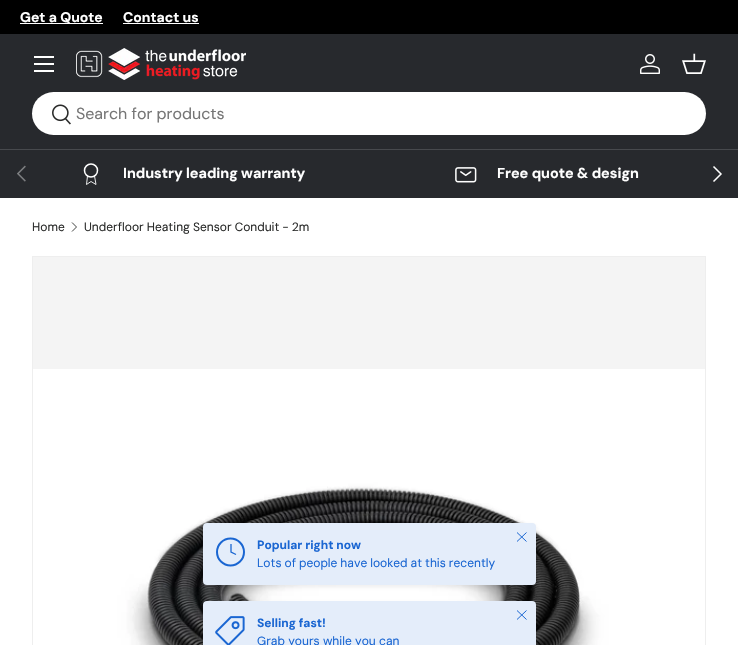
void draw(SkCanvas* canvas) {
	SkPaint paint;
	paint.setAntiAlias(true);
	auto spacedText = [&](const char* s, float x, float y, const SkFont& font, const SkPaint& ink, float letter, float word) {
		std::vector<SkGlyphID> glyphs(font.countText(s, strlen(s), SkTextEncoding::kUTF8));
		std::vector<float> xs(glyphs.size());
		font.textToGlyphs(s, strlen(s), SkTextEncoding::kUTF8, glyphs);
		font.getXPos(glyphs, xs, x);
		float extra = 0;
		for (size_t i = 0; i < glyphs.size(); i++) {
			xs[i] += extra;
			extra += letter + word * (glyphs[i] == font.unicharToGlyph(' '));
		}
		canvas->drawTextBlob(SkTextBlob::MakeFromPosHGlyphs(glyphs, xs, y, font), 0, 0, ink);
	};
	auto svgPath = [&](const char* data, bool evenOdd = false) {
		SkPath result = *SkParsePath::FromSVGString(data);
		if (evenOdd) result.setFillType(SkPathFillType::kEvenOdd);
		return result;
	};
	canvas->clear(0xffffffff);
	paint.setColor(0xff000000);
	canvas->drawRect(SkRect::MakeXYWH(0, 0, 738, 34), paint);
	paint.setColor(0xffffffff);
	canvas->drawRect(SkRect::MakeXYWH(20, 23, 83, 1), paint);
	SkFont f1(fontMgr->matchFamilyStyle("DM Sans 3", SkFontStyle::Bold()), 14);
	f1.setSubpixel(true);
	canvas->drawString("Get a Quote", 20, 22, f1, paint);
	canvas->drawString("Contact us", 123, 22, f1, paint);
	canvas->drawRect(SkRect::MakeXYWH(123, 23, 76, 1), paint);
	paint.setColor(0xff27292d);
	canvas->drawRect(SkRect::MakeXYWH(0, 34, 738, 115), paint);
	paint.setColor(0xff47494d);
	canvas->drawRect(SkRect::MakeXYWH(0, 149, 738, 1), paint);
	paint.setColor(0xffffffff);
	canvas->drawRect(SkRect::MakeXYWH(34, 56, 20, 2), paint);
	canvas->drawRect(SkRect::MakeXYWH(34, 70, 20, 2), paint);
	canvas->drawRect(SkRect::MakeXYWH(34, 63, 20, 2), paint);
	canvas->drawImageRect(SkImages::DeferredFromEncodedData(SkData::MakeFromFileName("img1.png")), SkRect::MakeXYWH(76, 48, 170, 32), SkSamplingOptions());
	canvas->drawImageRect(SkImages::DeferredFromEncodedData(SkData::MakeFromFileName("img2.png")), SkRect::MakeXYWH(640, 54, 20, 20), SkSamplingOptions());
	canvas->drawImageRect(SkImages::DeferredFromEncodedData(SkData::MakeFromFileName("img3.png")), SkRect::MakeXYWH(682, 53, 24, 21), SkSamplingOptions());
	canvas->drawRoundRect(SkRect::MakeXYWH(32, 92, 674, 43), 21.5, 21.5, paint);
	canvas->drawImageRect(SkImages::DeferredFromEncodedData(SkData::MakeFromFileName("img4.png")), SkRect::MakeXYWH(52, 104, 19, 21), SkSamplingOptions());
	SkFont f2(fontMgr->matchFamilyStyle("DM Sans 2", SkFontStyle::Normal()), 16);
	f2.setSubpixel(true);
	paint.setColor(0xff767676);
	canvas->drawString("Search for products", 76, 119, f2, paint);
	paint.setColor(0xff27292d);
	canvas->drawRect(SkRect::MakeXYWH(0, 150, 738, 48), paint);
	canvas->drawImageRect(SkImages::DeferredFromEncodedData(SkData::MakeFromFileName("img5.png")), SkRect::MakeXYWH(17, 165, 9, 17), SkSamplingOptions());
	paint.setStroke(true);
	paint.setStrokeWidth(1.5);
	paint.setColor(0xffffffff);
	canvas->drawPath(svgPath("M713.5 166.5L721 174L713.5 181.5"), paint);
	canvas->drawCircle(91, 170.5, 6.5, paint);
	paint.setStrokeWidth(0.9);
	canvas->drawPath(svgPath("M87.5 176L86.5 184.5L91 181.5L96 184.5L94.5 176"), paint);
	SkFont f3(fontMgr->matchFamilyStyle("DM Sans", SkFontStyle::Bold()), 14.4);
	f3.setSubpixel(true);
	paint.setStroke(false);
	canvas->drawString("Industry leading warranty", 123, 178, f3, paint);
	canvas->drawImageRect(SkImages::DeferredFromEncodedData(SkData::MakeFromFileName("img6.png")), SkRect::MakeXYWH(455, 167, 22, 16), SkSamplingOptions());
	canvas->drawString("Free quote & design", 497, 178, f3, paint);
	SkFont f4(fontMgr->matchFamilyStyle("DM Sans", SkFontStyle::Normal()), 12);
	f4.setSubpixel(true);
	paint.setColor(0xff2a2b2a);
	canvas->drawString("Home", 32, 231, f4, paint);
	paint.setStroke(true);
	canvas->drawPath(svgPath("M72 222.5L76.5 227L72 231.5"), paint);
	paint.setStroke(false);
	spacedText("Underfloor Heating Sensor Conduit - 2m", 84, 231, f4, paint, 0, -0.25);
	paint.setColor(0xfff4f4f4);
	canvas->drawRect(SkRect::MakeXYWH(33, 257, 672, 112), paint);
	paint.setStroke(true);
	paint.setStrokeWidth(1);
	paint.setColor(0xffeeeeee);
	canvas->drawRect(SkRect::MakeXYWH(32.5, 256.5, 673, 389), paint);
	canvas->drawImageRect(SkImages::DeferredFromEncodedData(SkData::MakeFromFileName("img7.png")), SkRect::MakeXYWH(33, 369, 672, 276), SkSamplingOptions());
	paint.setStroke(false);
	paint.setColor(0x14212b36);
	paint.setMaskFilter(SkMaskFilter::MakeBlur(kNormal_SkBlurStyle, 2));
	canvas->drawRoundRect(SkRect::MakeXYWH(203, 525, 333, 62), 4, 4, paint);
	paint.setMaskFilter(nullptr);
	paint.setColor(0xffe4edfa);
	canvas->drawRoundRect(SkRect::MakeXYWH(203, 523, 333, 62), 4, 4, paint);
	paint.setStroke(true);
	paint.setStrokeWidth(2);
	paint.setColor(0xff1a66d2);
	canvas->drawCircle(230.5, 552, 13.5, paint);
	paint.setStrokeWidth(1.3);
	canvas->drawPath(svgPath("M231 544V552L236 554.5"), paint);
	SkFont f5(fontMgr->matchFamilyStyle("DM Sans 2", SkFontStyle::Bold()), 12);
	f5.setSubpixel(true);
	paint.setStroke(false);
	canvas->drawString("Popular right now", 257, 549, f5, paint);
	spacedText("Lots of people have looked at this recently", 257, 567, f4, paint, 0, -0.25);
	paint.setStroke(true);
	paint.setStrokeWidth(1);
	paint.setStrokeJoin(SkPaint::kRound_Join);
	canvas->drawPath(svgPath("M517 541.5L526.5 532.5M517 532.5L526.5 541.5"), paint);
	paint.setStroke(false);
	paint.setColor(0x14212b36);
	paint.setMaskFilter(SkMaskFilter::MakeBlur(kNormal_SkBlurStyle, 2));
	canvas->drawRoundRect(SkRect::MakeXYWH(203, 603, 333, 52), 4, 4, paint);
	paint.setMaskFilter(nullptr);
	paint.setColor(0xffe4edfa);
	canvas->drawRoundRect(SkRect::MakeXYWH(203, 601, 333, 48), 4, 4, paint);
	paint.setStroke(true);
	paint.setColor(0xff1a66d2);
	canvas->drawPath(svgPath("M517 619.5L526.5 610.5M517 610.5L526.5 619.5"), paint);
	canvas->drawImageRect(SkImages::DeferredFromEncodedData(SkData::MakeFromFileName("img8.png")), SkRect::MakeXYWH(215, 616, 30, 29), SkSamplingOptions());
	paint.setStroke(false);
	canvas->drawString("Selling fast!", 257, 627, f5, paint);
	canvas->drawString("Grab yours while you can", 257, 645, f4, paint);
}
